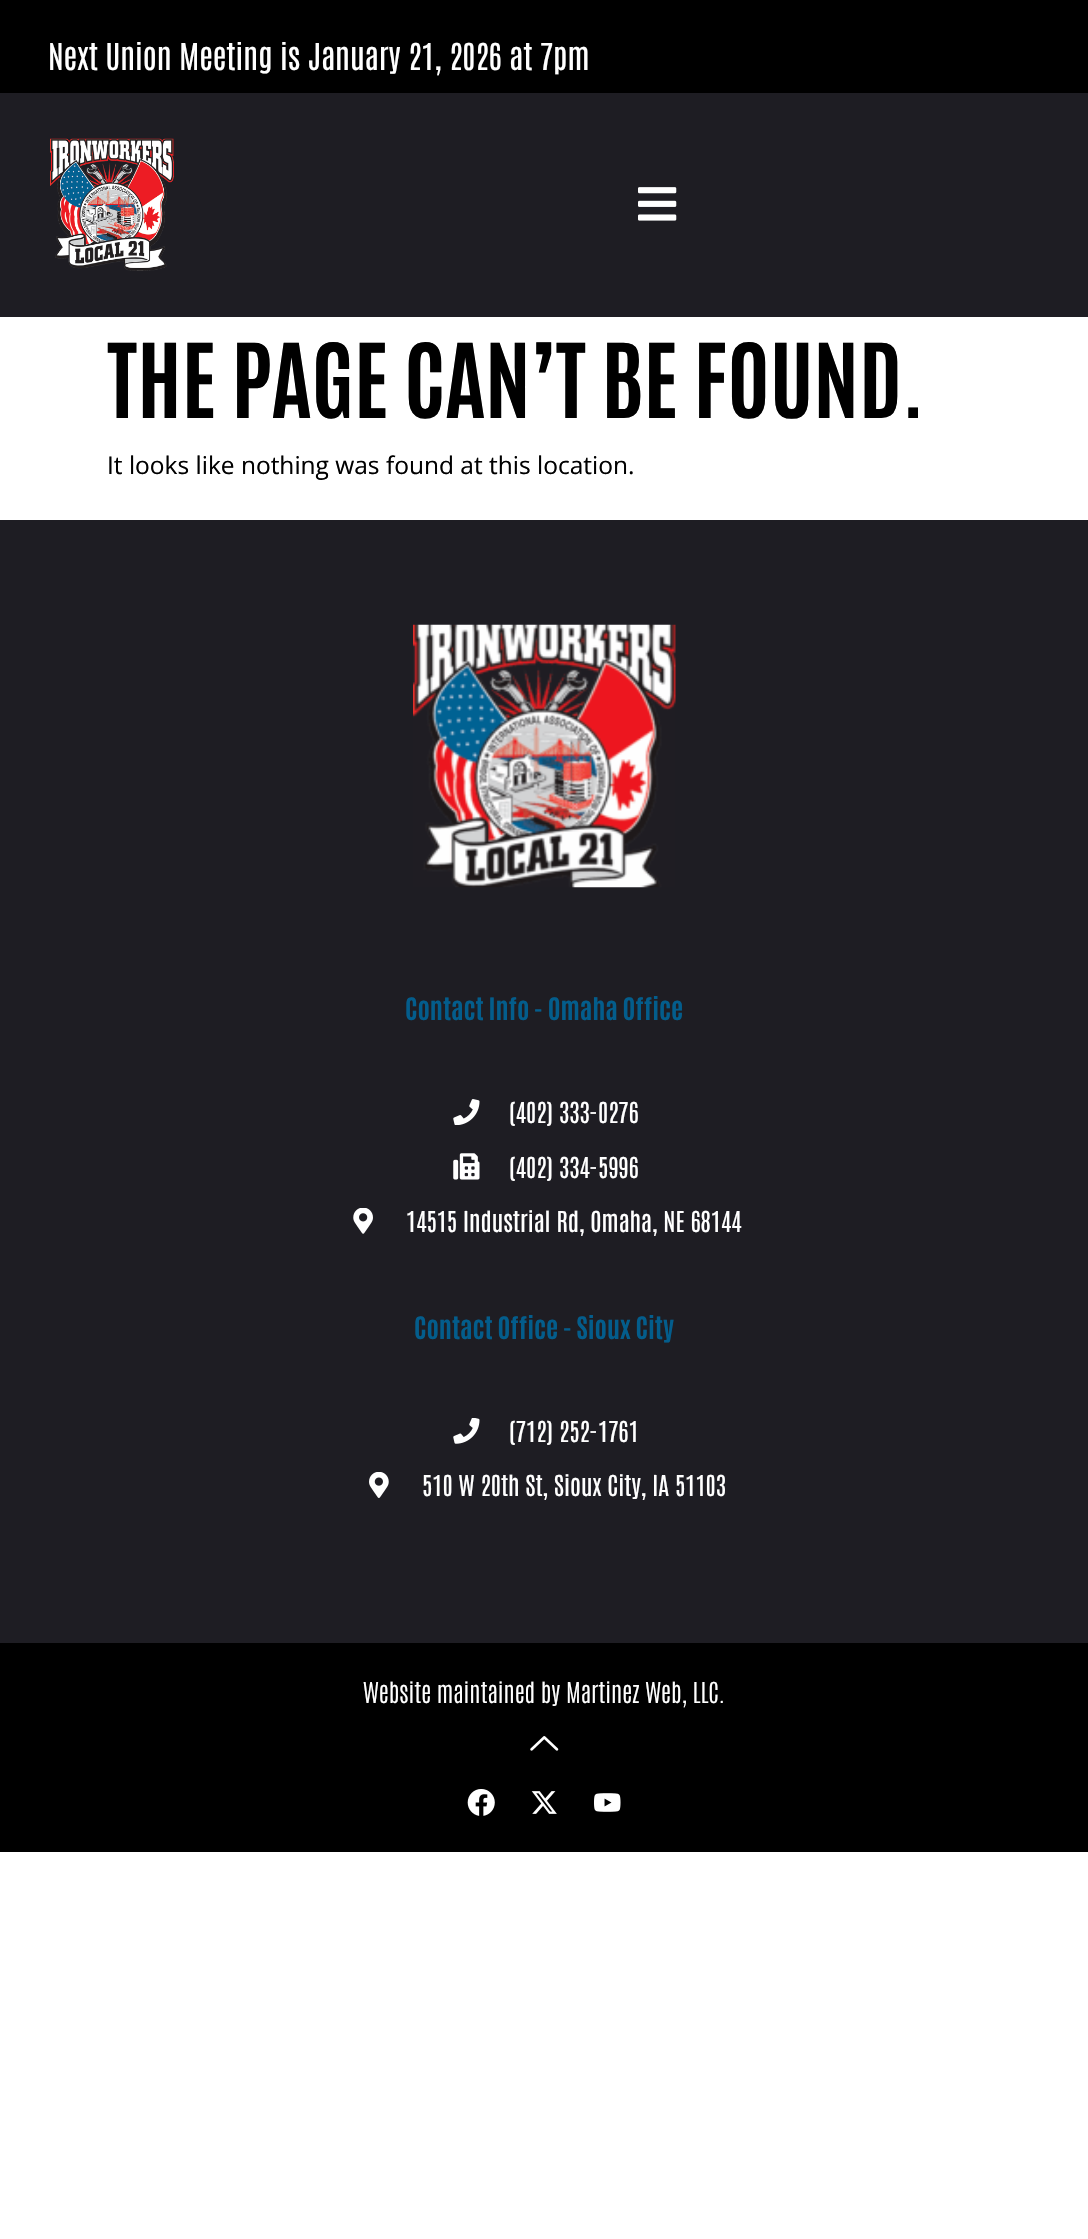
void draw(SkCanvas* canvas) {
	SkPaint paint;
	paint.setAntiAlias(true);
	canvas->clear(0xffffffff);
	paint.setColor(0xff000000);
	canvas->drawRect(SkRect::MakeXYWH(0, 0, 1088, 93), paint);
	SkFont f1(fontMgr->matchFamilyStyle("Antonio", SkFontStyle::Normal()), 31.5);
	f1.setSubpixel(true);
	paint.setColor(0xffffffff);
	canvas->drawString("Next Union Meeting is January 21, 2026 at 7pm", 48, 70, f1, paint);
	paint.setColor(0xff1e1d23);
	canvas->drawRect(SkRect::MakeXYWH(0, 93, 1088, 224), paint);
	canvas->drawImageRect(SkImages::DeferredFromEncodedData(SkData::MakeFromFileName("img1.png")), SkRect::MakeXYWH(50, 138, 124, 133), SkSamplingOptions());
	canvas->drawImageRect(SkImages::DeferredFromEncodedData(SkData::MakeFromFileName("img2.png")), SkRect::MakeXYWH(638, 187, 39, 34), SkSamplingOptions());
	SkFont f2(fontMgr->matchFamilyStyle("Antonio", SkFontStyle::Bold()), 87.5);
	f2.setSubpixel(true);
	paint.setColor(0xff000000);
	canvas->drawString("THE PAGE CAN’T BE FOUND.", 107, 418, f2, paint);
	SkFont f3(fontMgr->matchFamilyStyle("Open Sans", SkFontStyle::Normal()), 24.5);
	f3.setSubpixel(true);
	canvas->drawString("It looks like nothing was found at this location.", 107, 474, f3, paint);
	paint.setColor(0xff1e1d23);
	canvas->drawRect(SkRect::MakeXYWH(0, 520, 1088, 1123), paint);
	canvas->drawImageRect(SkImages::DeferredFromEncodedData(SkData::MakeFromFileName("img3.png")), SkRect::MakeXYWH(413, 624, 263, 264), SkSamplingOptions());
	SkFont f4(fontMgr->matchFamilyStyle("Antonio", SkFontStyle::Bold()), 26.25);
	f4.setSubpixel(true);
	paint.setColor(0xff035d8c);
	canvas->drawString("Contact Info - Omaha Office", 405, 1020, f4, paint);
	canvas->drawImageRect(SkImages::DeferredFromEncodedData(SkData::MakeFromFileName("img4.png")), SkRect::MakeXYWH(453, 1099, 27, 26), SkSamplingOptions());
	SkFont f5(fontMgr->matchFamilyStyle("Antonio", SkFontStyle::Normal()), 24.5);
	f5.setSubpixel(true);
	paint.setColor(0xffffffff);
	canvas->drawString("(402) 333-0276", 509, 1123, f5, paint);
	canvas->drawImageRect(SkImages::DeferredFromEncodedData(SkData::MakeFromFileName("img5.png")), SkRect::MakeXYWH(453, 1153, 27, 27), SkSamplingOptions());
	canvas->drawString("(402) 334-5996", 509, 1178, f5, paint);
	canvas->drawImageRect(SkImages::DeferredFromEncodedData(SkData::MakeFromFileName("img6.png")), SkRect::MakeXYWH(353, 1208, 20, 26), SkSamplingOptions());
	canvas->drawString("14515 Industrial Rd, Omaha, NE 68144", 406, 1232, f5, paint);
	paint.setColor(0xff035d8c);
	canvas->drawString("Contact Office - Sioux City", 414, 1339, f4, paint);
	canvas->drawImageRect(SkImages::DeferredFromEncodedData(SkData::MakeFromFileName("img7.png")), SkRect::MakeXYWH(453, 1418, 27, 26), SkSamplingOptions());
	paint.setColor(0xffffffff);
	canvas->drawString("(712) 252-1761", 509, 1442, f5, paint);
	canvas->drawImageRect(SkImages::DeferredFromEncodedData(SkData::MakeFromFileName("img8.png")), SkRect::MakeXYWH(369, 1472, 20, 26), SkSamplingOptions());
	canvas->drawString("510 W 20th St, Sioux City, IA 51103", 422, 1496, f5, paint);
	paint.setColor(0xff000000);
	canvas->drawRect(SkRect::MakeXYWH(0, 1643, 1088, 209), paint);
	SkFont f6(fontMgr->matchFamilyStyle("Antonio", SkFontStyle(200, SkFontStyle::kNormal_Width, SkFontStyle::kUpright_Slant)), 24.5);
	f6.setSubpixel(true);
	paint.setColor(0xffffffff);
	canvas->drawString("Website maintained by Martinez Web, LLC.", 363, 1703, f6, paint);
	canvas->drawImageRect(SkImages::DeferredFromEncodedData(SkData::MakeFromFileName("img9.png")), SkRect::MakeXYWH(530, 1736, 29, 15), SkSamplingOptions());
	canvas->drawImageRect(SkImages::DeferredFromEncodedData(SkData::MakeFromFileName("img10.png")), SkRect::MakeXYWH(467, 1789, 28, 27), SkSamplingOptions());
	canvas->drawImageRect(SkImages::DeferredFromEncodedData(SkData::MakeFromFileName("img11.png")), SkRect::MakeXYWH(531, 1791, 26, 23), SkSamplingOptions());
	canvas->drawImageRect(SkImages::DeferredFromEncodedData(SkData::MakeFromFileName("img12.png")), SkRect::MakeXYWH(594, 1793, 27, 19), SkSamplingOptions());
}
